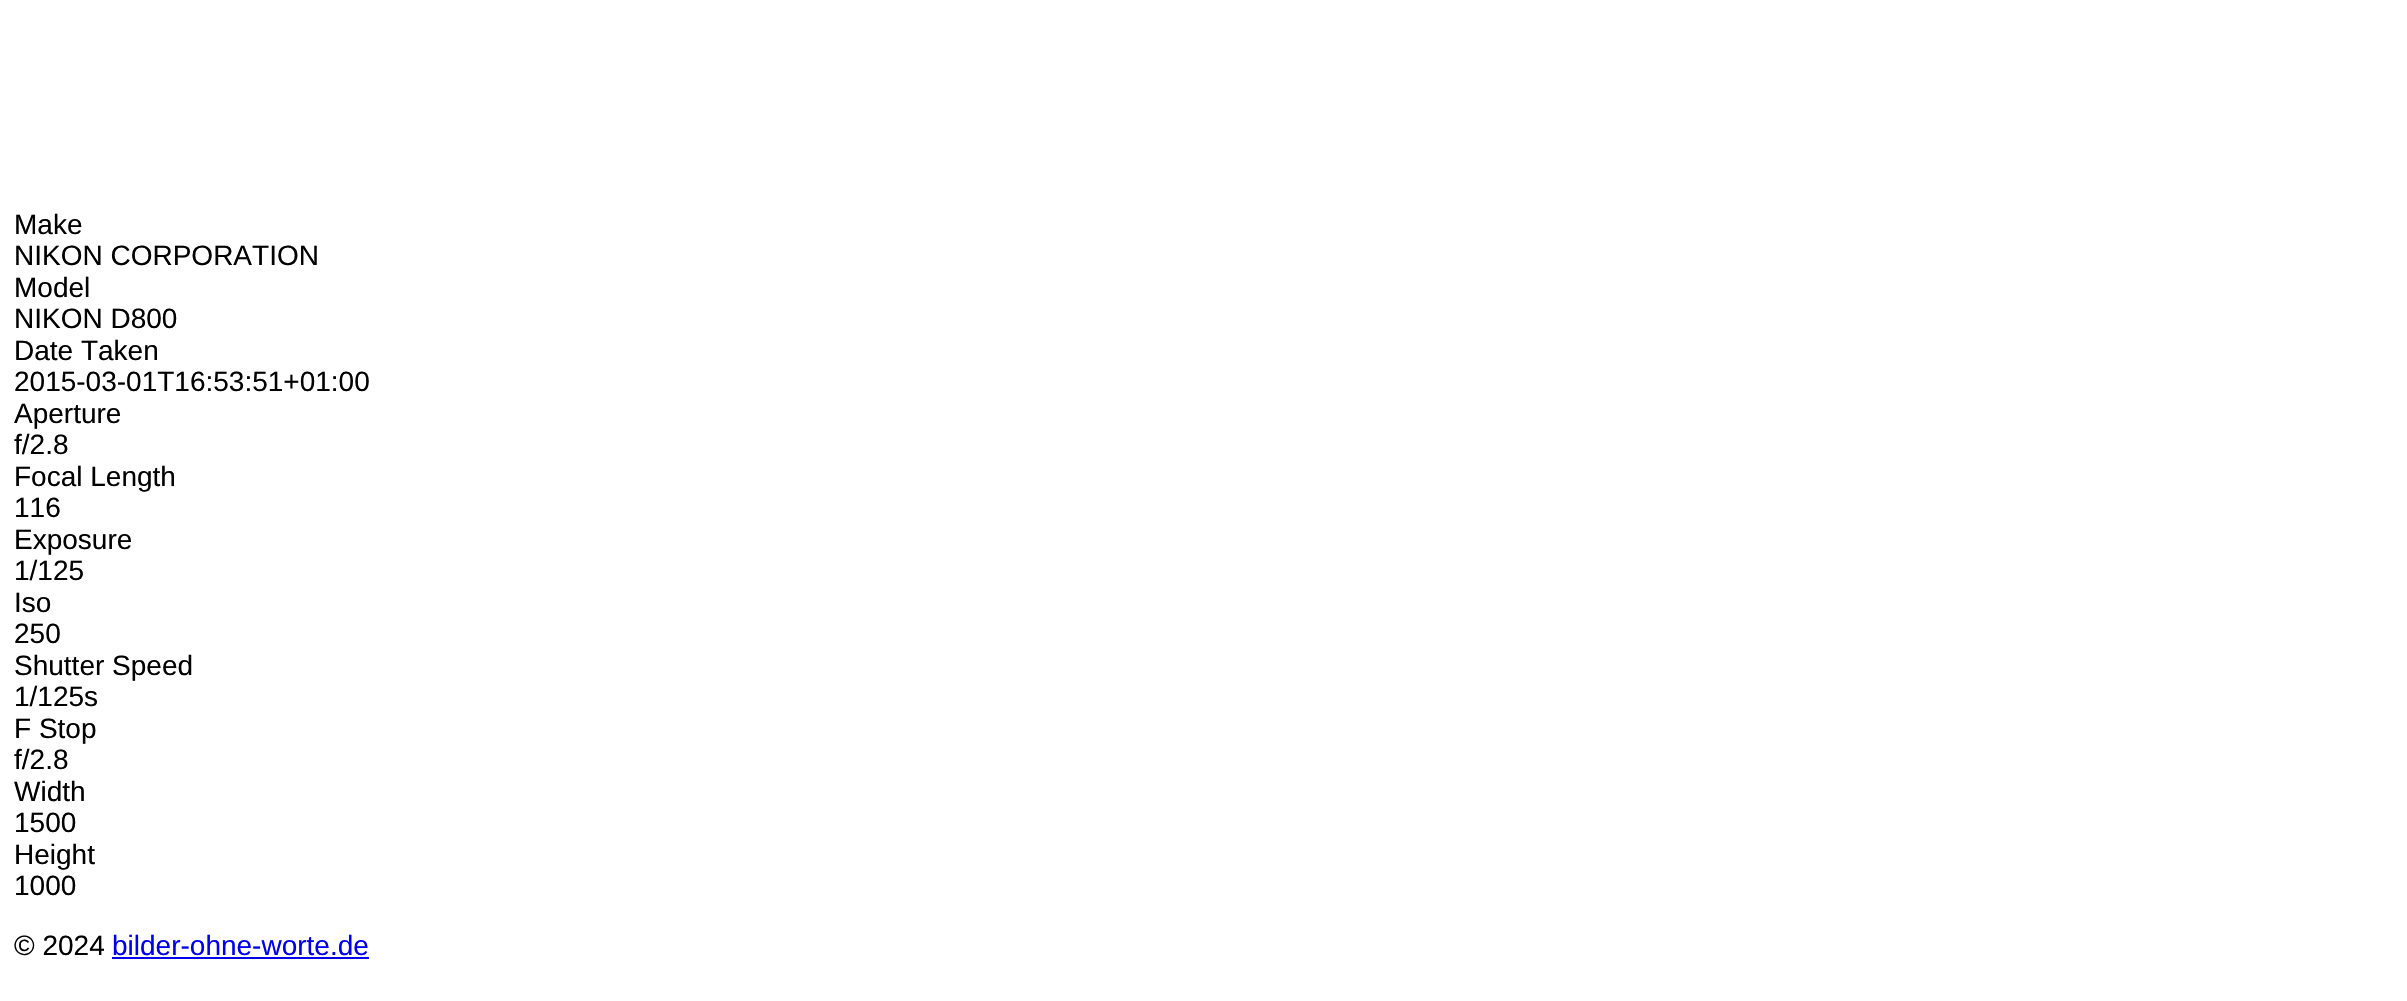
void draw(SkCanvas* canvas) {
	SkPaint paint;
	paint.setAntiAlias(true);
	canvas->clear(0xffffffff);
	SkFont f1(fontMgr->matchFamilyStyle("Liberation Sans", SkFontStyle::Normal()), 28);
	f1.setSubpixel(true);
	paint.setColor(0xff000000);
	canvas->drawString("Make", 14, 234, f1, paint);
	canvas->drawString("NIKON CORPORATION", 14, 265, f1, paint);
	canvas->drawString("Model", 14, 297, f1, paint);
	canvas->drawString("NIKON D800", 14, 328, f1, paint);
	canvas->drawString("Date Taken", 14, 360, f1, paint);
	canvas->drawString("2015-03-01T16:53:51+01:00", 14, 391, f1, paint);
	canvas->drawString("Aperture", 14, 423, f1, paint);
	canvas->drawString("f/2.8", 14, 454, f1, paint);
	canvas->drawString("Focal Length", 14, 486, f1, paint);
	canvas->drawString("116", 14, 517, f1, paint);
	canvas->drawString("Exposure", 14, 549, f1, paint);
	canvas->drawString("1/125", 14, 580, f1, paint);
	canvas->drawString("Iso", 14, 612, f1, paint);
	canvas->drawString("250", 14, 643, f1, paint);
	canvas->drawString("Shutter Speed", 14, 675, f1, paint);
	canvas->drawString("1/125s", 14, 706, f1, paint);
	canvas->drawString("F Stop", 14, 738, f1, paint);
	canvas->drawString("f/2.8", 14, 769, f1, paint);
	canvas->drawString("Width", 14, 801, f1, paint);
	canvas->drawString("1500", 14, 832, f1, paint);
	canvas->drawString("Height", 14, 864, f1, paint);
	canvas->drawString("1000", 14, 895, f1, paint);
	canvas->drawString("© 2024", 14, 955, f1, paint);
	paint.setColor(0xff0000ee);
	canvas->drawString("bilder-ohne-worte.de", 112, 955, f1, paint);
	canvas->drawRect(SkRect::MakeXYWH(112, 957, 257, 2), paint);
}
